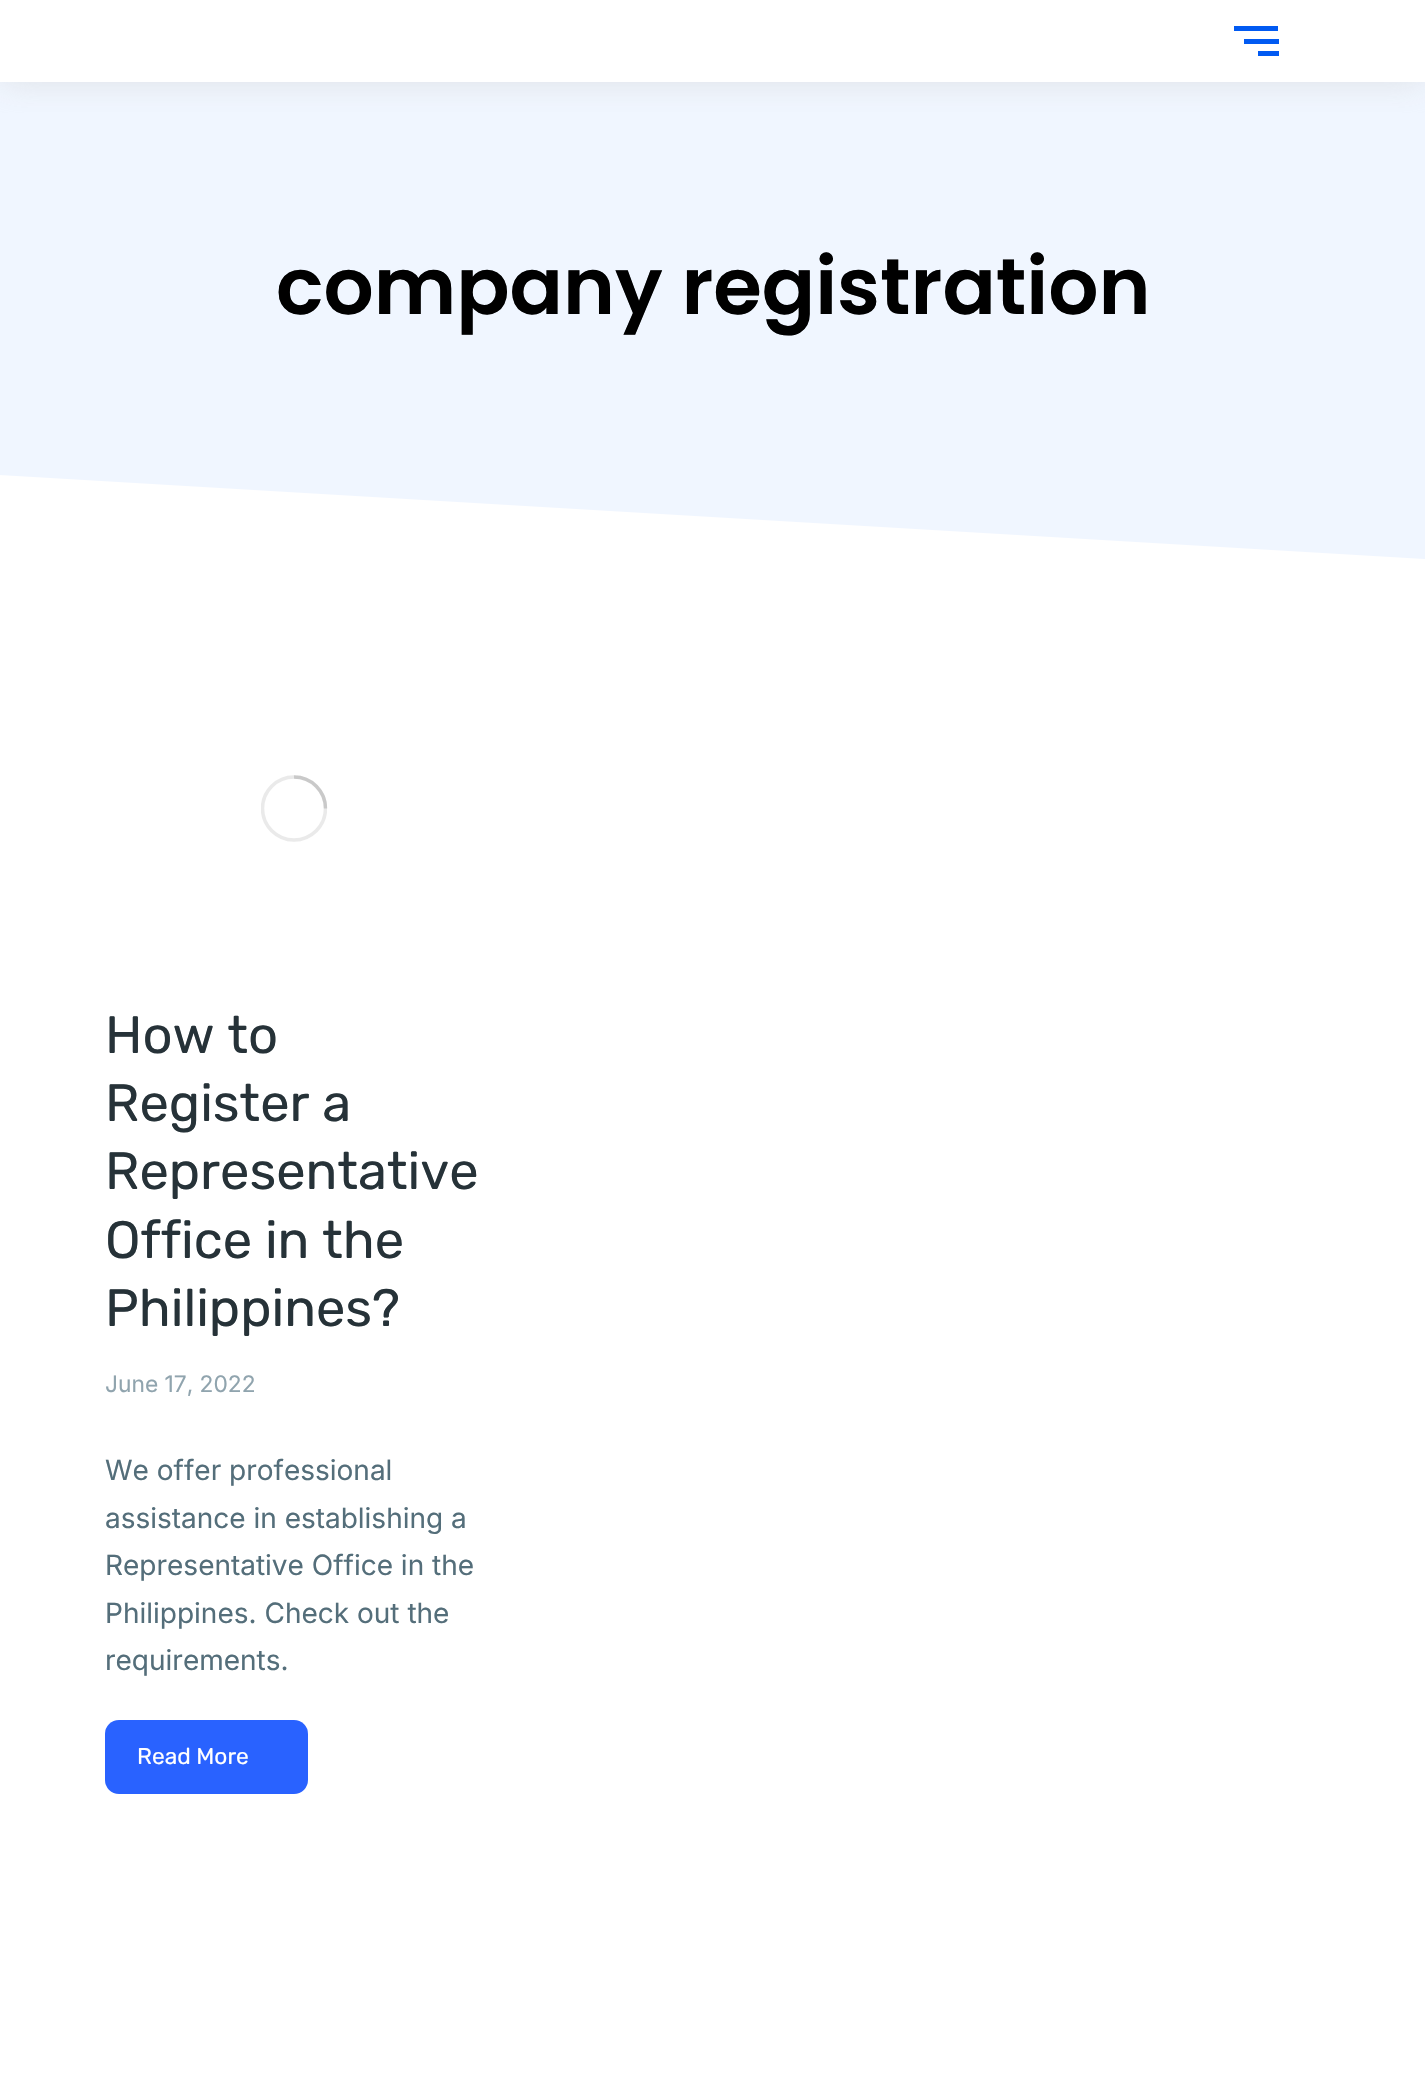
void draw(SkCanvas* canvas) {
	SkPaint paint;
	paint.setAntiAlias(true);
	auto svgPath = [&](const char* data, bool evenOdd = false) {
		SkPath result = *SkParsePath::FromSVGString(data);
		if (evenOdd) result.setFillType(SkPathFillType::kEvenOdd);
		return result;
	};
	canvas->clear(0xffffffff);
	paint.setColor(0xfff0f6ff);
	canvas->drawRect(SkRect::MakeXYWH(0, 82, 1425, 477), paint);
	canvas->save();
	canvas->clipRect(SkRect::MakeXYWH(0, 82, 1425, 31));
	paint.setColor(0x80cbcbcb);
	paint.setMaskFilter(SkMaskFilter::MakeBlur(kNormal_SkBlurStyle, 17.5));
	canvas->drawRect(SkRect::MakeXYWH(0, 0, 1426, 82), paint);
	paint.setMaskFilter(nullptr);
	canvas->restore();
	paint.setColor(0xff015af2);
	canvas->drawRect(SkRect::MakeXYWH(1234, 26, 44, 5), paint);
	canvas->drawRect(SkRect::MakeXYWH(1244, 39, 35, 5), paint);
	canvas->drawRect(SkRect::MakeXYWH(1258, 51, 21, 5), paint);
	SkFont f1(fontMgr->matchFamilyStyle("Poppins", SkFontStyle(600, SkFontStyle::kNormal_Width, SkFontStyle::kUpright_Slant)), 78.75);
	f1.setSubpixel(true);
	paint.setColor(0xff000000);
	canvas->drawString("company registration", 276, 314, f1, paint);
	paint.setColor(0xffffffff);
	canvas->drawPath(svgPath("M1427 559V564H-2V475Z"), paint);
	canvas->save();
	canvas->clipRect(SkRect::MakeXYWH(261, 775, 66, 67));
	paint.setStroke(true);
	paint.setStrokeWidth(3.5);
	paint.setColor(0xffeaeaea);
	canvas->drawCircle(294, 808.5, 31.5, paint);
	canvas->restore();
	paint.setColor(0x40666666);
	canvas->drawPath(svgPath("M325.5 808.5C325.5 791 311.5 777 294 777"), paint);
	SkFont f2(fontMgr->matchFamilyStyle("Rubik", SkFontStyle::Normal()), 52.5);
	f2.setSubpixel(true);
	paint.setStroke(false);
	paint.setColor(0xff263238);
	canvas->drawString("How to", 105, 1053, f2, paint);
	canvas->drawString("Register a", 105, 1121, f2, paint);
	canvas->drawString("Representative", 105, 1189, f2, paint);
	canvas->drawString("Office in the", 105, 1258, f2, paint);
	canvas->drawString("Philippines?", 105, 1326, f2, paint);
	SkFont f3(fontMgr->matchFamilyStyle("Inter", SkFontStyle::Normal()), 22.75);
	f3.setSubpixel(true);
	paint.setColor(0xff90a4ae);
	canvas->drawString("June 17, 2022", 105, 1392, f3, paint);
	SkFont f4(fontMgr->matchFamilyStyle("Inter", SkFontStyle::Normal()), 28);
	f4.setSubpixel(true);
	paint.setColor(0xff546e7a);
	canvas->drawString("We offer professional", 105, 1480, f4, paint);
	canvas->drawString("assistance in establishing a", 105, 1528, f4, paint);
	canvas->drawString("Representative Office in the", 105, 1575, f4, paint);
	canvas->drawString("Philippines. Check out the", 105, 1623, f4, paint);
	canvas->drawString("requirements.", 105, 1670, f4, paint);
	paint.setColor(0xff2962ff);
	canvas->drawRoundRect(SkRect::MakeXYWH(105, 1720, 203, 74), 14, 14, paint);
	SkFont f5(fontMgr->matchFamilyStyle("Rubik", SkFontStyle::Normal()), 22.75);
	f5.setSubpixel(true);
	paint.setColor(0xffffffff);
	canvas->drawString("Read More", 137, 1764, f5, paint);
}
